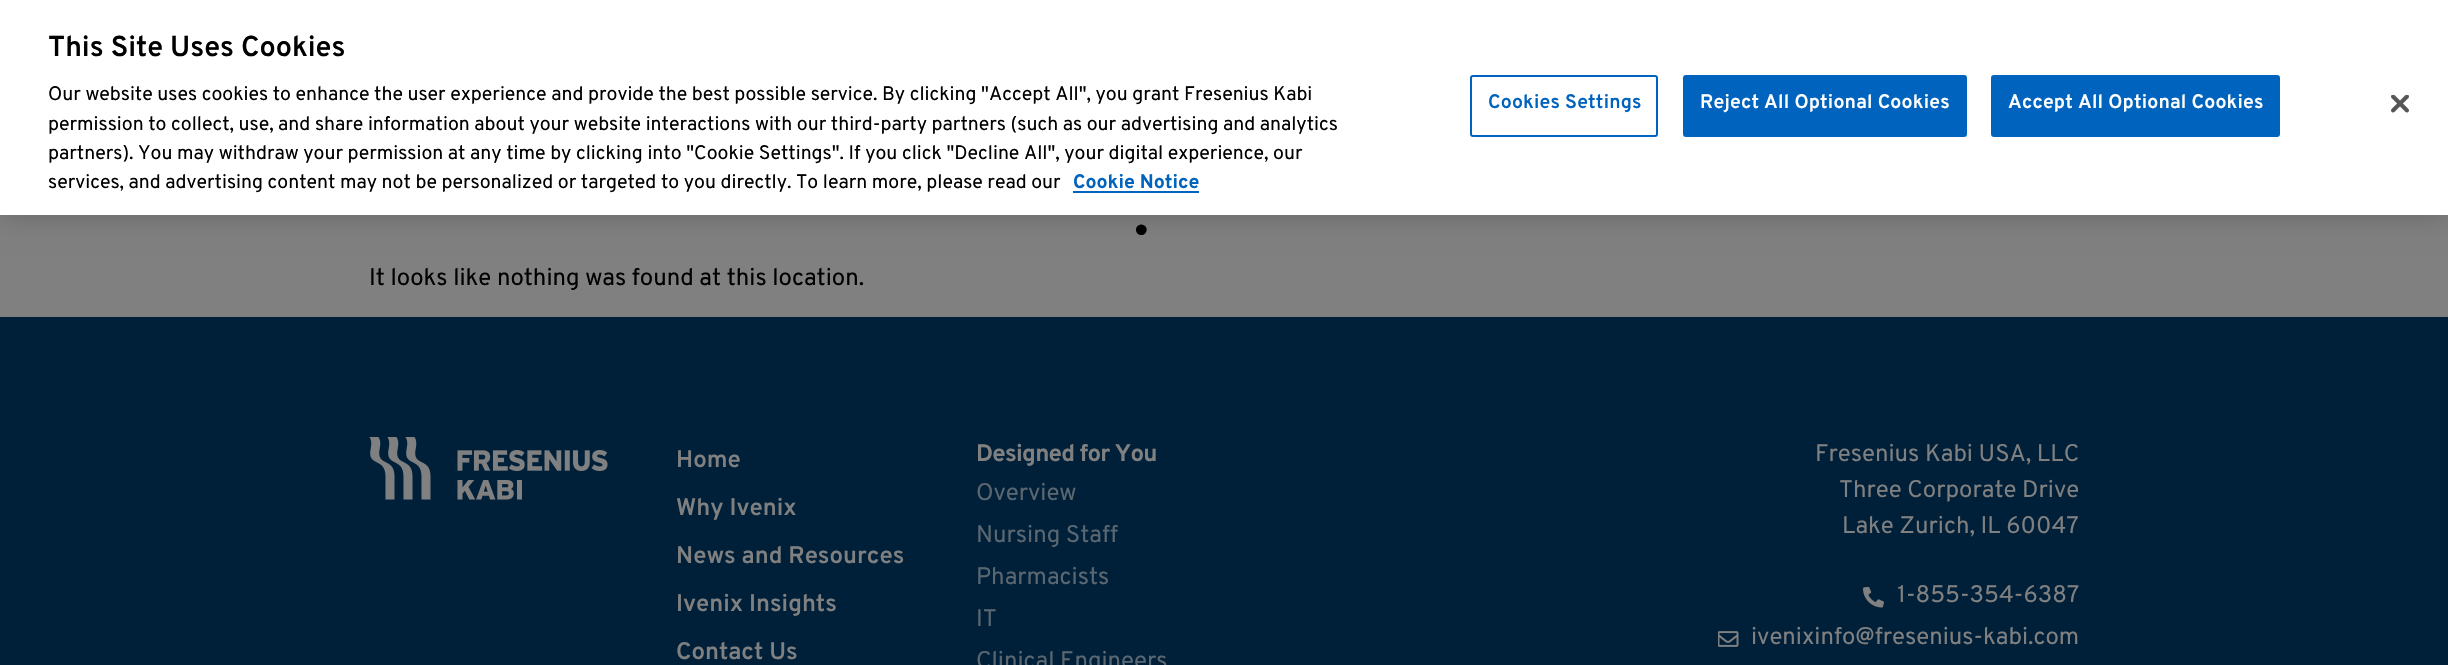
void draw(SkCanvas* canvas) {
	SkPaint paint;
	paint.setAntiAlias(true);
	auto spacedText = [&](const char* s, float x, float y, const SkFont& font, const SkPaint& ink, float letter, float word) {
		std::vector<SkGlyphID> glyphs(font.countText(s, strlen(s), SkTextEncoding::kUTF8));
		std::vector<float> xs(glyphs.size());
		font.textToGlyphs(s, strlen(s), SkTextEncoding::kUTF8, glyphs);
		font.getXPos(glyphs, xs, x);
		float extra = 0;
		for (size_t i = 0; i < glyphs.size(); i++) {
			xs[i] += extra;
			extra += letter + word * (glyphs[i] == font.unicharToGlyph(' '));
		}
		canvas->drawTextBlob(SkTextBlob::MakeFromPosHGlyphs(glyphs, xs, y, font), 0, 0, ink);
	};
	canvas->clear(0xff808080);
	paint.setColor(0x33000000);
	paint.setMaskFilter(SkMaskFilter::MakeBlur(kNormal_SkBlurStyle, 13.5));
	canvas->drawRect(SkRect::MakeXYWH(0, 0, 2448, 215), paint);
	paint.setMaskFilter(nullptr);
	paint.setColor(0xffffffff);
	canvas->drawRect(SkRect::MakeXYWH(0, 0, 2448, 215), paint);
	SkFont f1(fontMgr->matchFamilyStyle("Overpass", SkFontStyle(600, SkFontStyle::kNormal_Width, SkFontStyle::kUpright_Slant)), 28.75);
	f1.setSubpixel(true);
	paint.setColor(0xff000000);
	canvas->drawString("This Site Uses Cookies", 48, 56, f1, paint);
	SkFont f2(fontMgr->matchFamilyStyle("Overpass", SkFontStyle::Normal()), 19.5);
	f2.setSubpixel(true);
	canvas->drawString("Our website uses cookies to enhance the user experience and provide the best possible service. By clicking \"Accept All\", you grant Fresenius Kabi", 48, 100, f2, paint);
	canvas->drawString("permission to collect, use, and share information about your website interactions with our third-party partners (such as our advertising and analytics", 48, 130, f2, paint);
	canvas->drawString("partners). You may withdraw your permission at any time by clicking into \"Cookie Settings\". If you click \"Decline All\", your digital experience, our", 48, 159, f2, paint);
	canvas->drawString("services, and advertising content may not be personalized or targeted to you directly. To learn more, please read our", 48, 188, f2, paint);
	SkFont f3(fontMgr->matchFamilyStyle("Overpass", SkFontStyle::Bold()), 19.5);
	f3.setSubpixel(true);
	paint.setColor(0xff0063be);
	canvas->drawString("Cookie Notice", 1073, 188, f3, paint);
	canvas->drawRect(SkRect::MakeXYWH(1073, 191, 126, 2), paint);
	paint.setStroke(true);
	paint.setStrokeWidth(2);
	canvas->drawRoundRect(SkRect::MakeXYWH(1471, 76, 186, 60), 2, 2, paint);
	SkFont f4(fontMgr->matchFamilyStyle("Overpass", SkFontStyle(600, SkFontStyle::kNormal_Width, SkFontStyle::kUpright_Slant)), 19.5);
	f4.setSubpixel(true);
	paint.setStroke(false);
	spacedText("Cookies Settings", 1488, 108, f4, paint, 0.2, 0);
	canvas->drawRoundRect(SkRect::MakeXYWH(1684, 76, 282, 60), 2, 2, paint);
	paint.setStroke(true);
	canvas->drawRoundRect(SkRect::MakeXYWH(1684, 76, 282, 60), 2, 2, paint);
	paint.setStroke(false);
	paint.setColor(0xffffffff);
	spacedText("Reject All Optional Cookies", 1700, 108, f4, paint, 0.2, 0);
	paint.setColor(0xff0063be);
	canvas->drawRoundRect(SkRect::MakeXYWH(1992, 76, 287, 60), 2, 2, paint);
	paint.setStroke(true);
	canvas->drawRoundRect(SkRect::MakeXYWH(1992, 76, 287, 60), 2, 2, paint);
	paint.setStroke(false);
	paint.setColor(0xffffffff);
	spacedText("Accept All Optional Cookies", 2008, 108, f4, paint, 0.2, 0);
	canvas->drawImageRect(SkImages::DeferredFromEncodedData(SkData::MakeFromFileName("img1.png")), SkRect::MakeXYWH(2391, 95, 18, 18), SkSamplingOptions());
	SkFont f5(fontMgr->matchFamilyStyle("Overpass", SkFontStyle(500, SkFontStyle::kNormal_Width, SkFontStyle::kUpright_Slant)), 72);
	f5.setSubpixel(true);
	paint.setColor(0xff000000);
	spacedText(".", 1133, 234, f5, paint, -0.75, 0);
	SkFont f6(fontMgr->matchFamilyStyle("Overpass", SkFontStyle::Normal()), 24);
	f6.setSubpixel(true);
	canvas->drawString("It looks like nothing was found at this location.", 369, 285, f6, paint);
	paint.setColor(0xff002039);
	canvas->drawRect(SkRect::MakeXYWH(0, 317, 2448, 348), paint);
	canvas->drawImageRect(SkImages::DeferredFromEncodedData(SkData::MakeFromFileName("img2.png")), SkRect::MakeXYWH(369, 437, 239, 63), SkSamplingOptions());
	SkFont f7(fontMgr->matchFamilyStyle("Overpass", SkFontStyle(600, SkFontStyle::kNormal_Width, SkFontStyle::kUpright_Slant)), 24);
	f7.setSubpixel(true);
	paint.setColor(0xff808080);
	canvas->drawString("Home", 676, 467, f7, paint);
	canvas->drawString("Why Ivenix", 676, 515, f7, paint);
	canvas->drawString("News and Resources", 676, 563, f7, paint);
	canvas->drawString("Ivenix Insights", 676, 611, f7, paint);
	canvas->drawString("Contact Us", 676, 659, f7, paint);
	SkFont f8(fontMgr->matchFamilyStyle("Overpass", SkFontStyle::Bold()), 24);
	f8.setSubpixel(true);
	spacedText("Designed for You", 976, 461, f8, paint, -0.75, 0);
	paint.setColor(0xff5a6771);
	canvas->drawString("Overview", 976, 500, f6, paint);
	canvas->drawString("Nursing Staff", 976, 542, f6, paint);
	canvas->drawString("Pharmacists", 976, 584, f6, paint);
	canvas->drawString("IT", 976, 626, f6, paint);
	canvas->drawString("Clinical Engineers", 976, 668, f6, paint);
	paint.setColor(0xff808080);
	canvas->drawString("Fresenius Kabi USA, LLC", 1815, 461, f6, paint);
	canvas->drawString("Three Corporate Drive", 1839, 497, f6, paint);
	canvas->drawString("Lake Zurich, IL 60047", 1842, 533, f6, paint);
	canvas->drawImageRect(SkImages::DeferredFromEncodedData(SkData::MakeFromFileName("img3.png")), SkRect::MakeXYWH(1863, 587, 21, 21), SkSamplingOptions());
	canvas->drawString("1-855-354-6387", 1897, 602, f6, paint);
	canvas->drawImageRect(SkImages::DeferredFromEncodedData(SkData::MakeFromFileName("img4.png")), SkRect::MakeXYWH(1718, 631, 21, 16), SkSamplingOptions());
	canvas->drawString("ivenixinfo@fresenius-kabi.com", 1751, 644, f6, paint);
}
